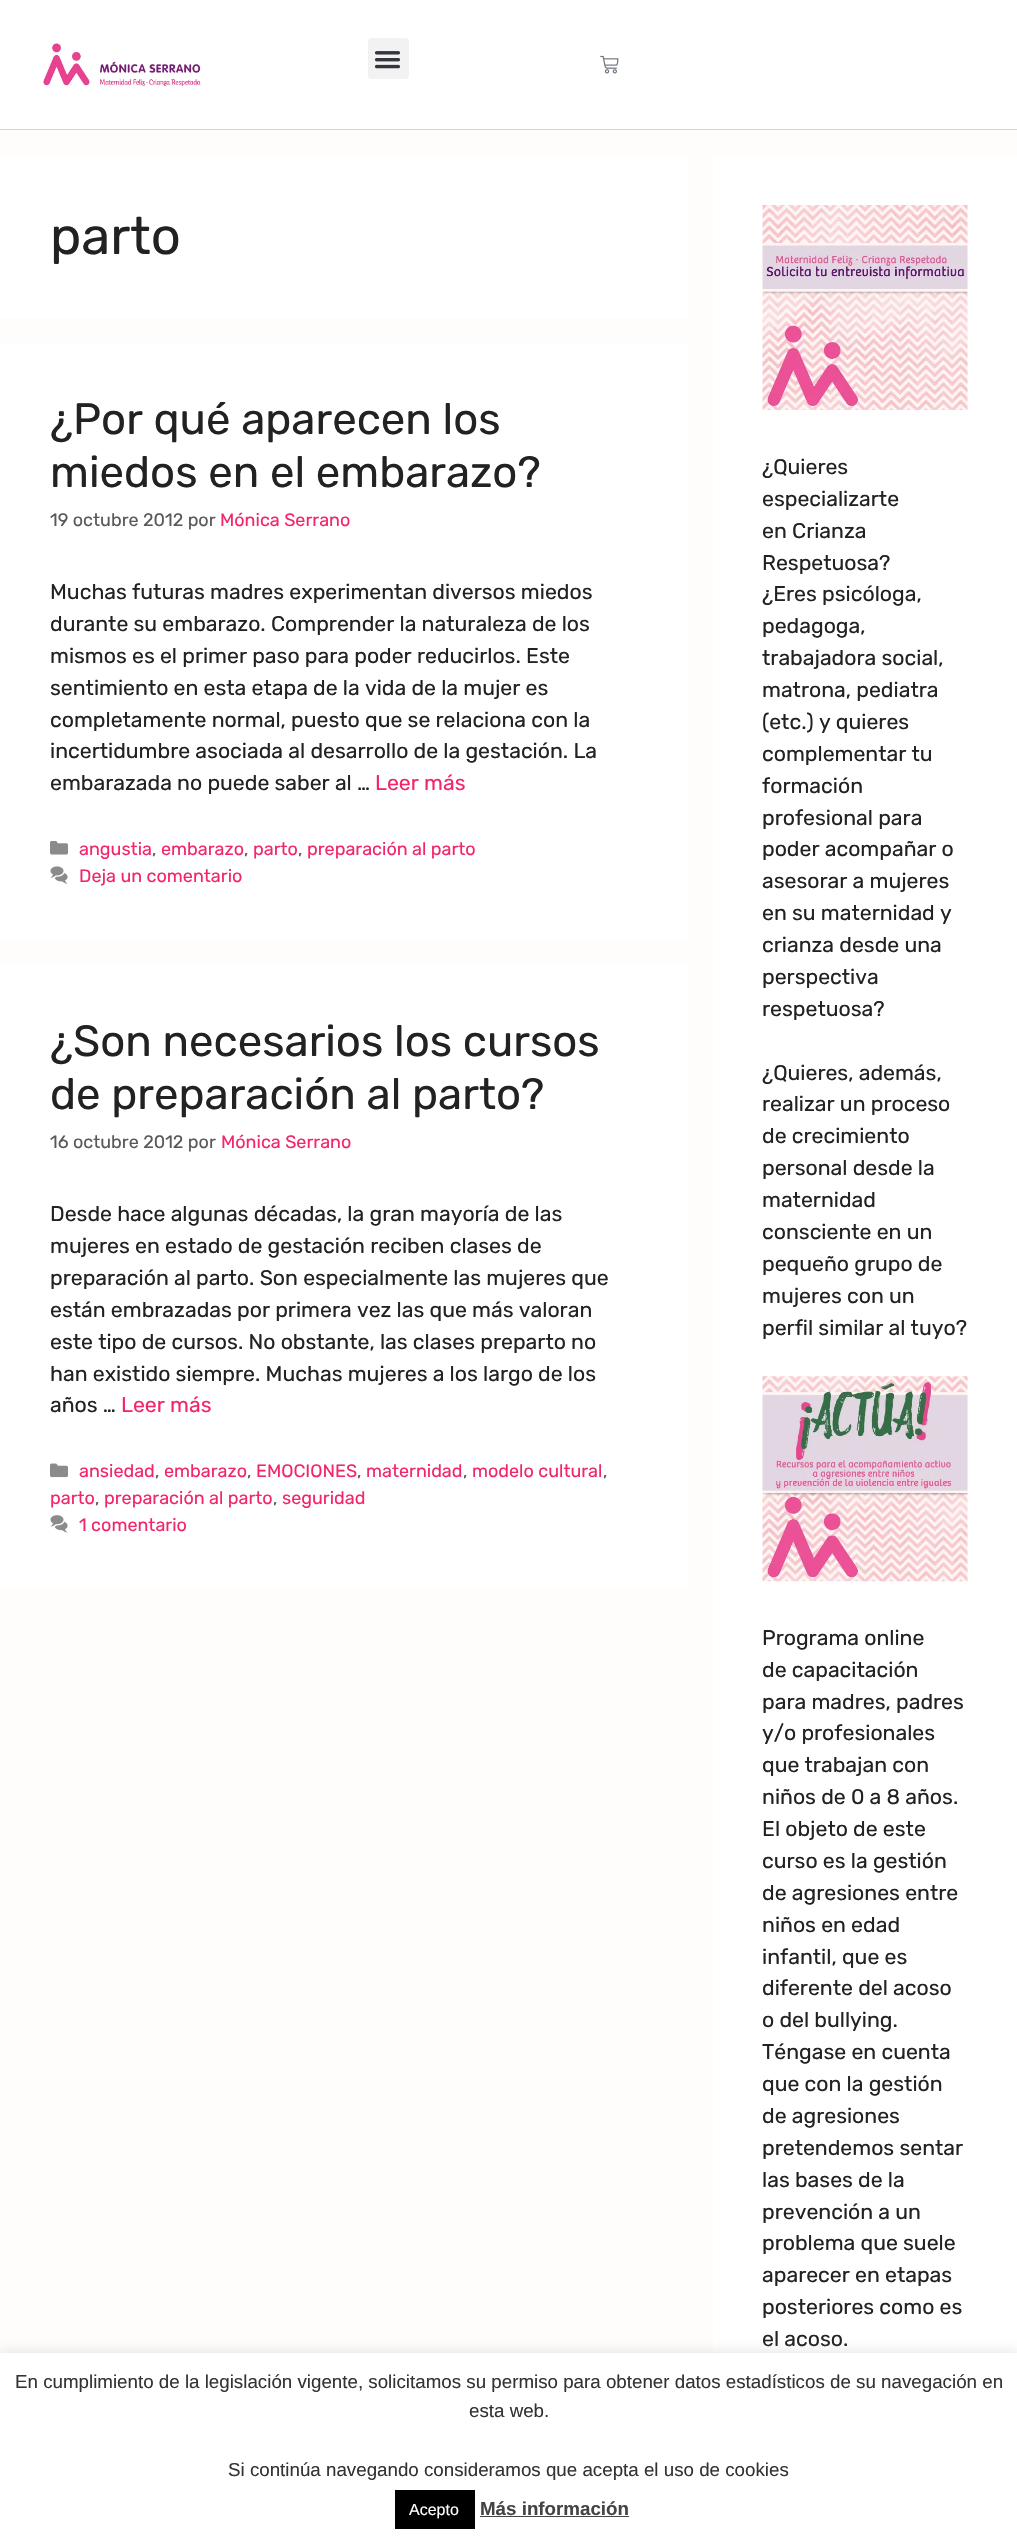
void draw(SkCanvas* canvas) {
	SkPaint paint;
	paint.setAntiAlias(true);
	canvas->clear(0xfffffcfc);
	paint.setColor(0xffffffff);
	canvas->drawRect(SkRect::MakeXYWH(0, 0, 1017, 129), paint);
	paint.setColor(0xffd6d6d6);
	canvas->drawRect(SkRect::MakeXYWH(0, 129, 1017, 1), paint);
	canvas->drawImageRect(SkImages::DeferredFromEncodedData(SkData::MakeFromFileName("img1.png")), SkRect::MakeXYWH(43, 43, 159, 45), SkSamplingOptions());
	paint.setColor(0xfff2f2f2);
	canvas->drawRoundRect(SkRect::MakeXYWH(368, 38, 41, 41), 4, 4, paint);
	canvas->drawImageRect(SkImages::DeferredFromEncodedData(SkData::MakeFromFileName("img2.png")), SkRect::MakeXYWH(374, 51, 27, 18), SkSamplingOptions());
	canvas->drawImageRect(SkImages::DeferredFromEncodedData(SkData::MakeFromFileName("img3.png")), SkRect::MakeXYWH(600, 55, 19, 19), SkSamplingOptions());
	paint.setColor(0xffffffff);
	canvas->drawRect(SkRect::MakeXYWH(0, 155, 688, 163), paint);
	SkFont f1(fontMgr->matchFamilyStyle("Rubik", SkFontStyle::Normal()), 52.5);
	f1.setSubpixel(true);
	paint.setColor(0xff222222);
	canvas->drawString("parto", 50, 254, f1, paint);
	paint.setColor(0xffffffff);
	canvas->drawRect(SkRect::MakeXYWH(0, 343, 688, 597), paint);
	SkFont f2(fontMgr->matchFamilyStyle("Rubik", SkFontStyle::Normal()), 43.75);
	f2.setSubpixel(true);
	paint.setColor(0xff222222);
	canvas->drawString("¿Por qué aparecen los", 50, 434, f2, paint);
	canvas->drawString("miedos en el embarazo?", 50, 487, f2, paint);
	SkFont f3(fontMgr->matchFamilyStyle("Rubik", SkFontStyle::Normal()), 18);
	f3.setSubpixel(true);
	paint.setColor(0xff595959);
	canvas->drawString("19 octubre 2012 por", 50, 526, f3, paint);
	paint.setColor(0xfff2266a);
	canvas->drawString("Mónica Serrano", 220, 526, f3, paint);
	SkFont f4(fontMgr->matchFamilyStyle("Rubik", SkFontStyle::Normal()), 21.25);
	f4.setSubpixel(true);
	paint.setColor(0xff222222);
	canvas->drawString("Muchas futuras madres experimentan diversos miedos", 50, 599, f4, paint);
	canvas->drawString("durante su embarazo. Comprender la naturaleza de los", 50, 631, f4, paint);
	canvas->drawString("mismos es el primer paso para poder reducirlos. Este", 50, 663, f4, paint);
	canvas->drawString("sentimiento en esta etapa de la vida de la mujer es", 50, 695, f4, paint);
	canvas->drawString("completamente normal, puesto que se relaciona con la", 50, 727, f4, paint);
	canvas->drawString("incertidumbre asociada al desarrollo de la gestación. La", 50, 758, f4, paint);
	canvas->drawString("embarazada no puede saber al …", 50, 790, f4, paint);
	paint.setColor(0xfff2266a);
	canvas->drawString("Leer más", 375, 790, f4, paint);
	canvas->drawImageRect(SkImages::DeferredFromEncodedData(SkData::MakeFromFileName("img4.png")), SkRect::MakeXYWH(50, 841, 18, 14), SkSamplingOptions());
	canvas->drawString("angustia", 79, 855, f3, paint);
	paint.setColor(0xff595959);
	canvas->drawString(",", 152, 855, f3, paint);
	paint.setColor(0xfff2266a);
	canvas->drawString("embarazo", 161, 855, f3, paint);
	paint.setColor(0xff595959);
	canvas->drawString(",", 244, 855, f3, paint);
	paint.setColor(0xfff2266a);
	canvas->drawString("parto", 253, 855, f3, paint);
	paint.setColor(0xff595959);
	canvas->drawString(",", 298, 855, f3, paint);
	paint.setColor(0xfff2266a);
	canvas->drawString("preparación al parto", 307, 855, f3, paint);
	canvas->drawImageRect(SkImages::DeferredFromEncodedData(SkData::MakeFromFileName("img5.png")), SkRect::MakeXYWH(50, 866, 18, 18), SkSamplingOptions());
	canvas->drawString("Deja un comentario", 79, 882, f3, paint);
	paint.setColor(0xffffffff);
	canvas->drawRect(SkRect::MakeXYWH(0, 965, 688, 624), paint);
	paint.setColor(0xff222222);
	canvas->drawString("¿Son necesarios los cursos", 50, 1056, f2, paint);
	canvas->drawString("de preparación al parto?", 50, 1109, f2, paint);
	paint.setColor(0xff595959);
	canvas->drawString("16 octubre 2012 por", 50, 1148, f3, paint);
	paint.setColor(0xfff2266a);
	canvas->drawString("Mónica Serrano", 221, 1148, f3, paint);
	paint.setColor(0xff222222);
	canvas->drawString("Desde hace algunas décadas, la gran mayoría de las", 50, 1221, f4, paint);
	canvas->drawString("mujeres en estado de gestación reciben clases de", 50, 1253, f4, paint);
	canvas->drawString("preparación al parto. Son especialmente las mujeres que", 50, 1285, f4, paint);
	canvas->drawString("están embrazadas por primera vez las que más valoran", 50, 1317, f4, paint);
	canvas->drawString("este tipo de cursos. No obstante, las clases preparto no", 50, 1349, f4, paint);
	canvas->drawString("han existido siempre. Muchas mujeres a los largo de los", 50, 1381, f4, paint);
	canvas->drawString("años …", 50, 1412, f4, paint);
	paint.setColor(0xfff2266a);
	canvas->drawString("Leer más", 121, 1412, f4, paint);
	canvas->drawImageRect(SkImages::DeferredFromEncodedData(SkData::MakeFromFileName("img6.png")), SkRect::MakeXYWH(50, 1463, 18, 15), SkSamplingOptions());
	canvas->drawString("ansiedad", 79, 1477, f3, paint);
	paint.setColor(0xff595959);
	canvas->drawString(",", 155, 1477, f3, paint);
	paint.setColor(0xfff2266a);
	canvas->drawString("embarazo", 164, 1477, f3, paint);
	paint.setColor(0xff595959);
	canvas->drawString(",", 247, 1477, f3, paint);
	paint.setColor(0xfff2266a);
	canvas->drawString("EMOCIONES", 256, 1477, f3, paint);
	paint.setColor(0xff595959);
	canvas->drawString(",", 357, 1477, f3, paint);
	paint.setColor(0xfff2266a);
	canvas->drawString("maternidad", 366, 1477, f3, paint);
	paint.setColor(0xff595959);
	canvas->drawString(",", 463, 1477, f3, paint);
	paint.setColor(0xfff2266a);
	canvas->drawString("modelo cultural", 472, 1477, f3, paint);
	paint.setColor(0xff595959);
	canvas->drawString(",", 603, 1477, f3, paint);
	paint.setColor(0xfff2266a);
	canvas->drawString("parto", 50, 1504, f3, paint);
	paint.setColor(0xff595959);
	canvas->drawString(",", 95, 1504, f3, paint);
	paint.setColor(0xfff2266a);
	canvas->drawString("preparación al parto", 104, 1504, f3, paint);
	paint.setColor(0xff595959);
	canvas->drawString(",", 273, 1504, f3, paint);
	paint.setColor(0xfff2266a);
	canvas->drawString("seguridad", 282, 1504, f3, paint);
	canvas->drawImageRect(SkImages::DeferredFromEncodedData(SkData::MakeFromFileName("img7.png")), SkRect::MakeXYWH(50, 1515, 18, 18), SkSamplingOptions());
	canvas->drawString("1 comentario", 79, 1531, f3, paint);
	paint.setColor(0xffffffff);
	canvas->drawRect(SkRect::MakeXYWH(713, 155, 304, 2198), paint);
	canvas->drawImageRect(SkImages::DeferredFromEncodedData(SkData::MakeFromFileName("img8.png")), SkRect::MakeXYWH(762, 205, 206, 205), SkSamplingOptions());
	paint.setColor(0xff222222);
	canvas->drawString("¿Quieres", 762, 474, f4, paint);
	canvas->drawString("especializarte", 762, 506, f4, paint);
	canvas->drawString("en Crianza", 762, 538, f4, paint);
	canvas->drawString("Respetuosa?", 762, 570, f4, paint);
	canvas->drawString("¿Eres psicóloga,", 762, 601, f4, paint);
	canvas->drawString("pedagoga,", 762, 633, f4, paint);
	canvas->drawString("trabajadora social,", 762, 665, f4, paint);
	canvas->drawString("matrona, pediatra", 762, 697, f4, paint);
	canvas->drawString("(etc.) y quieres", 762, 729, f4, paint);
	canvas->drawString("complementar tu", 762, 761, f4, paint);
	canvas->drawString("formación", 762, 793, f4, paint);
	canvas->drawString("profesional para", 762, 825, f4, paint);
	canvas->drawString("poder acompañar o", 762, 856, f4, paint);
	canvas->drawString("asesorar a mujeres", 762, 888, f4, paint);
	canvas->drawString("en su maternidad y", 762, 920, f4, paint);
	canvas->drawString("crianza desde una", 762, 952, f4, paint);
	canvas->drawString("perspectiva", 762, 984, f4, paint);
	canvas->drawString("respetuosa?", 762, 1016, f4, paint);
	canvas->drawString("¿Quieres, además,", 762, 1080, f4, paint);
	canvas->drawString("realizar un proceso", 762, 1111, f4, paint);
	canvas->drawString("de crecimiento", 762, 1143, f4, paint);
	canvas->drawString("personal desde la", 762, 1175, f4, paint);
	canvas->drawString("maternidad", 762, 1207, f4, paint);
	canvas->drawString("consciente en un", 762, 1239, f4, paint);
	canvas->drawString("pequeño grupo de", 762, 1271, f4, paint);
	canvas->drawString("mujeres con un", 762, 1303, f4, paint);
	canvas->drawString("perfil similar al tuyo?", 762, 1335, f4, paint);
	canvas->drawImageRect(SkImages::DeferredFromEncodedData(SkData::MakeFromFileName("img9.png")), SkRect::MakeXYWH(762, 1376, 206, 206), SkSamplingOptions());
	canvas->drawString("Programa online", 762, 1645, f4, paint);
	canvas->drawString("de capacitación", 762, 1677, f4, paint);
	canvas->drawString("para madres, padres", 762, 1709, f4, paint);
	canvas->drawString("y/o profesionales", 762, 1740, f4, paint);
	canvas->drawString("que trabajan con", 762, 1772, f4, paint);
	canvas->drawString("niños de 0 a 8 años.", 762, 1804, f4, paint);
	canvas->drawString("El objeto de este", 762, 1836, f4, paint);
	canvas->drawString("curso es la gestión", 762, 1868, f4, paint);
	canvas->drawString("de agresiones entre", 762, 1900, f4, paint);
	canvas->drawString("niños en edad", 762, 1932, f4, paint);
	canvas->drawString("infantil, que es", 762, 1964, f4, paint);
	canvas->drawString("diferente del acoso", 762, 1995, f4, paint);
	canvas->drawString("o del bullying.", 762, 2027, f4, paint);
	canvas->drawString("Téngase en cuenta", 762, 2059, f4, paint);
	canvas->drawString("que con la gestión", 762, 2091, f4, paint);
	canvas->drawString("de agresiones", 762, 2123, f4, paint);
	canvas->drawString("pretendemos sentar", 762, 2155, f4, paint);
	canvas->drawString("las bases de la", 762, 2187, f4, paint);
	canvas->drawString("prevención a un", 762, 2219, f4, paint);
	canvas->drawString("problema que suele", 762, 2250, f4, paint);
	canvas->drawString("aparecer en etapas", 762, 2282, f4, paint);
	canvas->drawString("posteriores como es", 762, 2314, f4, paint);
	canvas->drawString("el acoso.", 762, 2346, f4, paint);
	paint.setColor(0x4dacabab);
	paint.setMaskFilter(SkMaskFilter::MakeBlur(kNormal_SkBlurStyle, 6));
	canvas->drawRect(SkRect::MakeXYWH(0, 2351, 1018, 192), paint);
	paint.setMaskFilter(nullptr);
	paint.setColor(0xffffffff);
	canvas->drawRect(SkRect::MakeXYWH(0, 2353, 1017, 190), paint);
	SkFont f5(fontMgr->matchFamilyStyle("Liberation Sans", SkFontStyle::Normal()), 18.75);
	f5.setSubpixel(true);
	paint.setColor(0xff333333);
	canvas->drawString("En cumplimiento de la legislación vigente, solicitamos su permiso para obtener datos estadísticos de su navegación en", 15, 2388, f5, paint);
	canvas->drawString("esta web.", 469, 2417, f5, paint);
	canvas->drawString("Si continúa navegando consideramos que acepta el uso de cookies", 228, 2476, f5, paint);
	paint.setColor(0xff000000);
	canvas->drawRect(SkRect::MakeXYWH(395, 2490, 80, 39), paint);
	SkFont f6(fontMgr->matchFamilyStyle("Liberation Sans", SkFontStyle::Normal()), 16);
	f6.setSubpixel(true);
	paint.setColor(0xffffffff);
	canvas->drawString("Acepto", 409, 2515, f6, paint);
	SkFont f7(fontMgr->matchFamilyStyle("Liberation Sans", SkFontStyle::Bold()), 18.75);
	f7.setSubpixel(true);
	paint.setColor(0xff444444);
	canvas->drawString("Más información", 480, 2515, f7, paint);
	canvas->drawRect(SkRect::MakeXYWH(480, 2516, 149, 1), paint);
}
